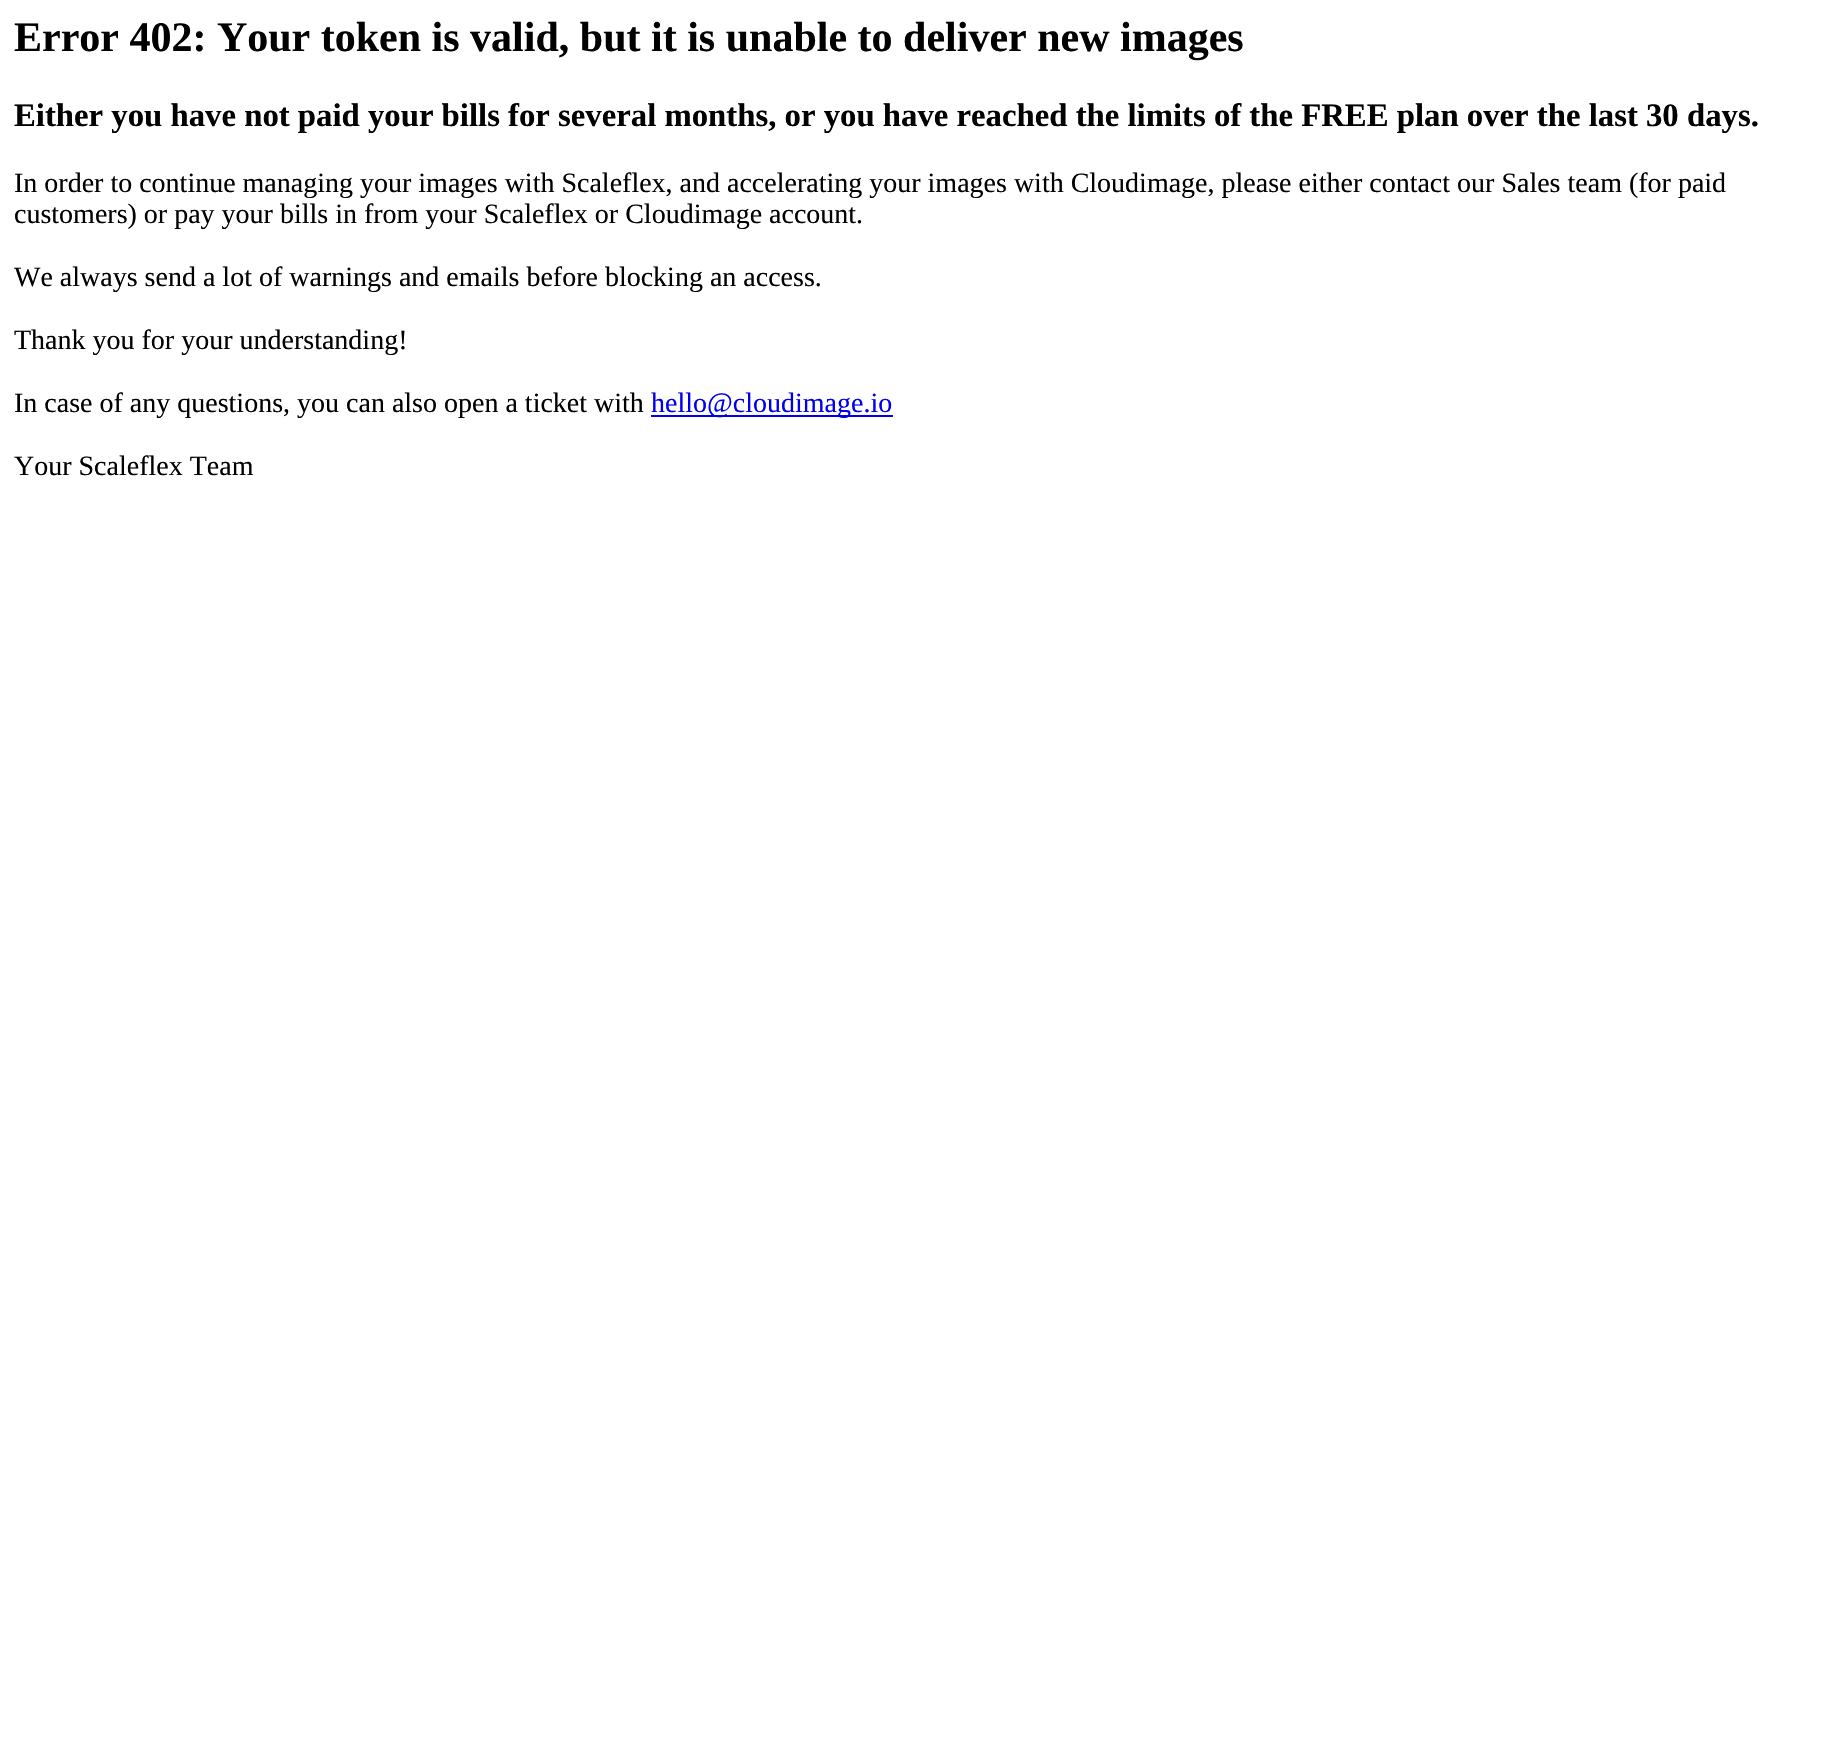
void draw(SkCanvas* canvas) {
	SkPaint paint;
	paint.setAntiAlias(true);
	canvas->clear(0xffffffff);
	SkFont f1(fontMgr->matchFamilyStyle("Liberation Serif", SkFontStyle::Bold()), 42);
	f1.setSubpixel(true);
	paint.setColor(0xff000000);
	canvas->drawString("Error 402: Your token is valid, but it is unable to deliver new images", 14, 51, f1, paint);
	SkFont f2(fontMgr->matchFamilyStyle("Liberation Serif", SkFontStyle::Bold()), 32.75);
	f2.setSubpixel(true);
	canvas->drawString("Either you have not paid your bills for several months, or you have reached the limits of the FREE plan over the last 30 days.", 14, 126, f2, paint);
	SkFont f3(fontMgr->matchFamilyStyle("Liberation Serif", SkFontStyle::Normal()), 28);
	f3.setSubpixel(true);
	canvas->drawString("In order to continue managing your images with Scaleflex, and accelerating your images with Cloudimage, please either contact our Sales team (for paid", 14, 192, f3, paint);
	canvas->drawString("customers) or pay your bills in from your Scaleflex or Cloudimage account.", 14, 223, f3, paint);
	canvas->drawString("We always send a lot of warnings and emails before blocking an access.", 14, 286, f3, paint);
	canvas->drawString("Thank you for your understanding!", 14, 349, f3, paint);
	canvas->drawString("In case of any questions, you can also open a ticket with", 14, 412, f3, paint);
	paint.setColor(0xff0000ee);
	canvas->drawRect(SkRect::MakeXYWH(651, 415, 242, 2), paint);
	canvas->drawString("hello@cloudimage.io", 651, 412, f3, paint);
	paint.setColor(0xff000000);
	canvas->drawString("Your Scaleflex Team", 14, 475, f3, paint);
}
